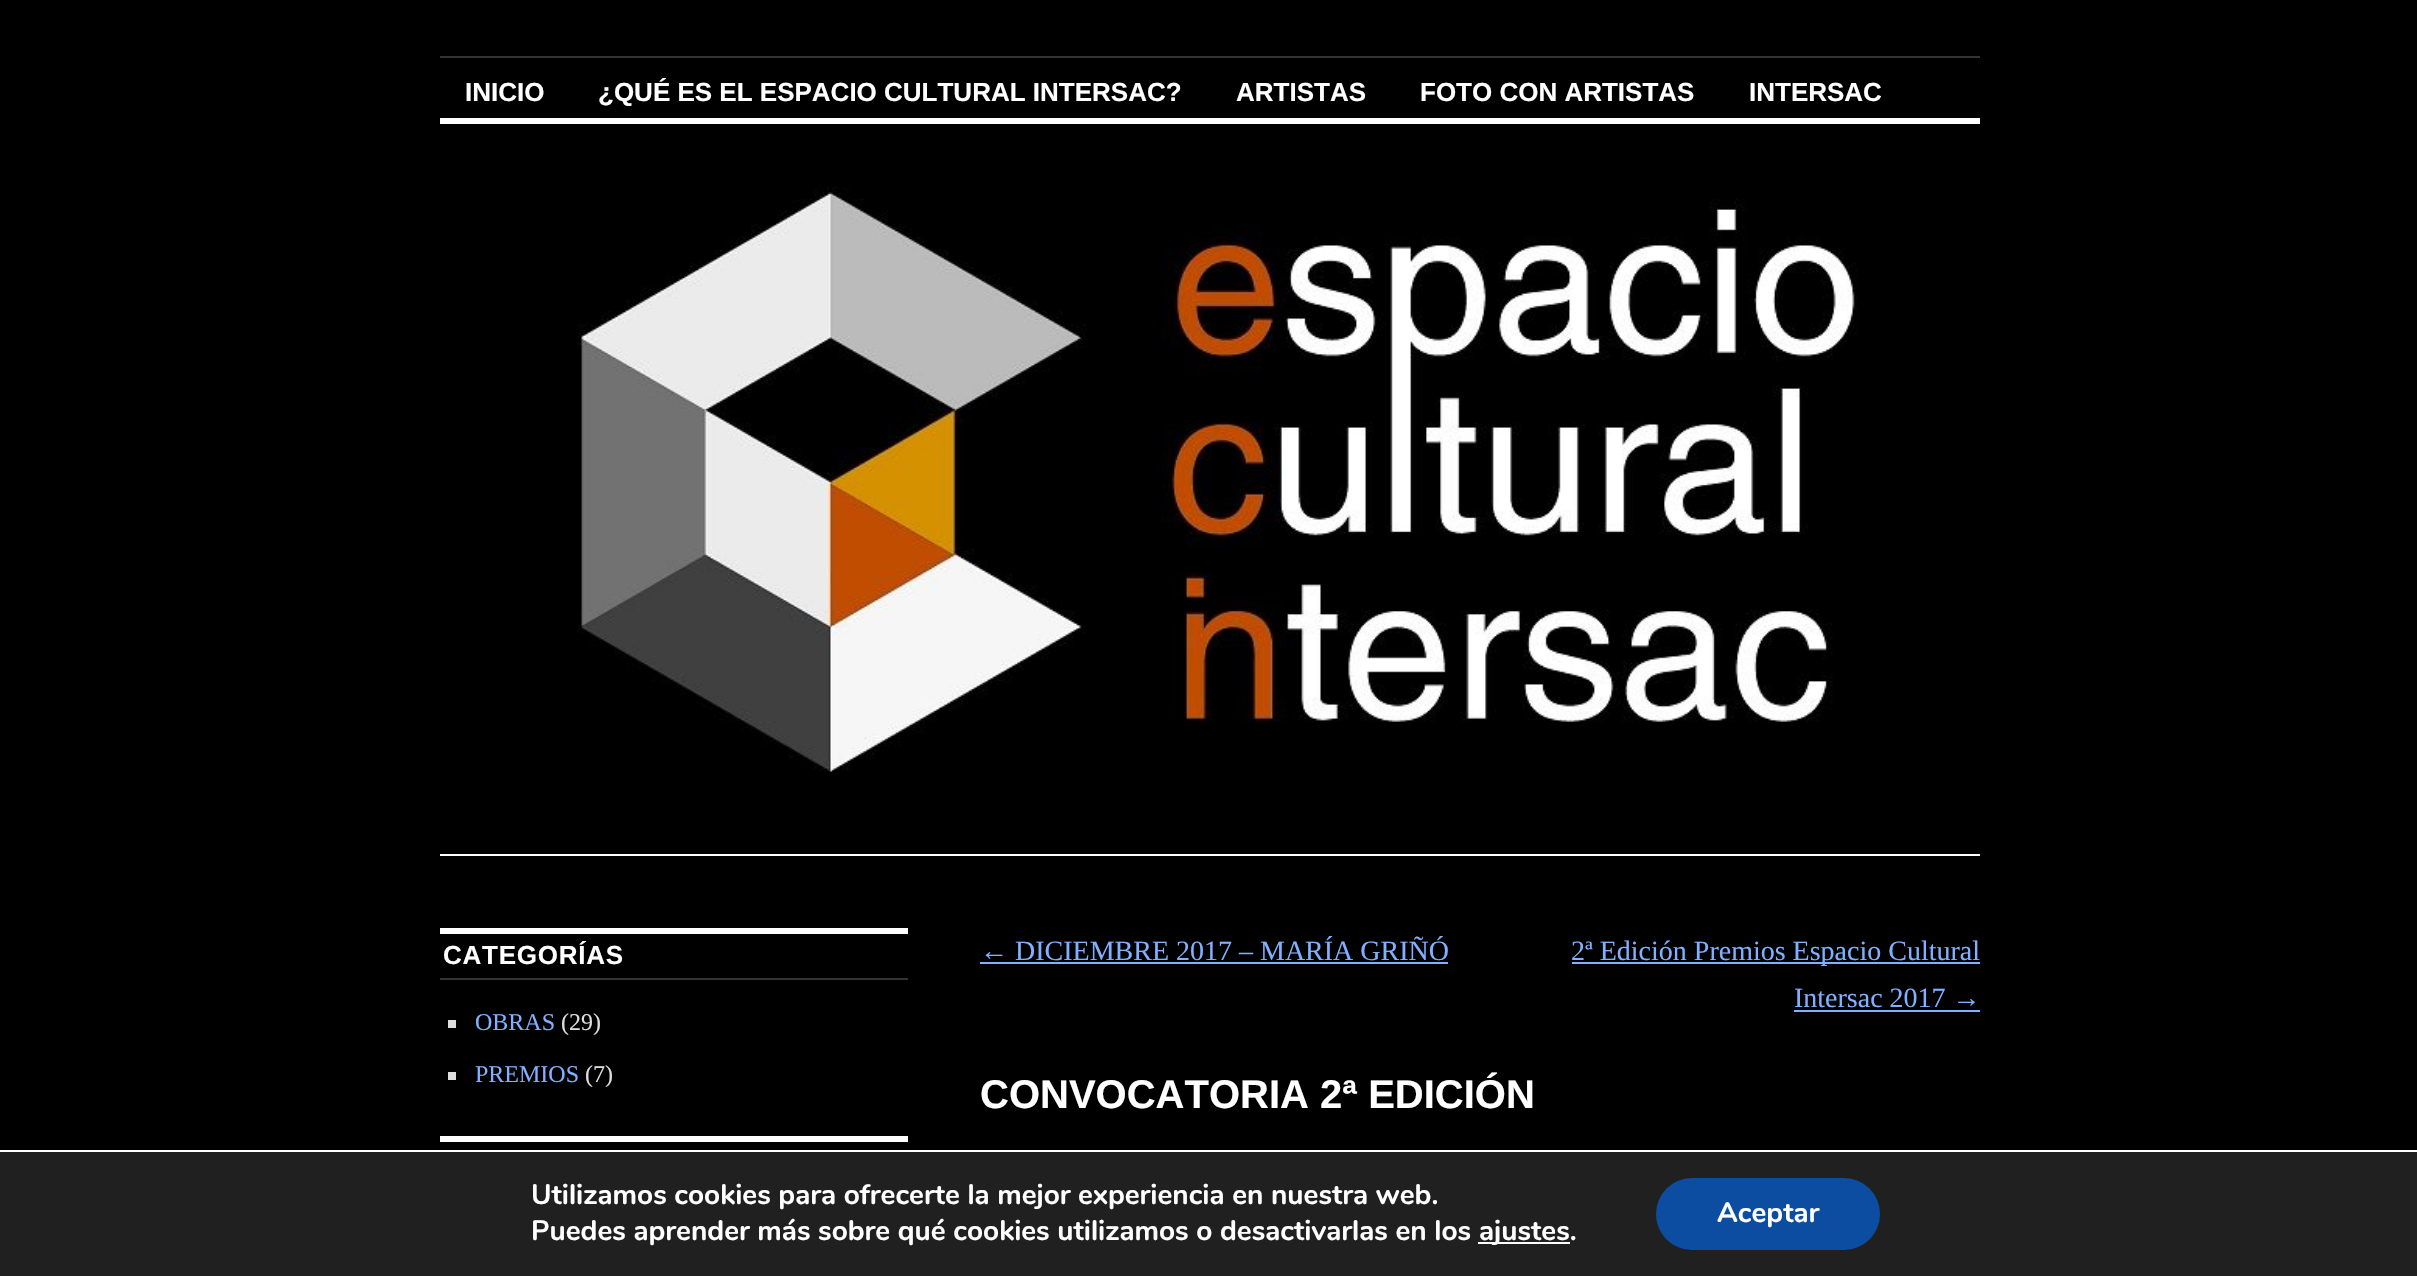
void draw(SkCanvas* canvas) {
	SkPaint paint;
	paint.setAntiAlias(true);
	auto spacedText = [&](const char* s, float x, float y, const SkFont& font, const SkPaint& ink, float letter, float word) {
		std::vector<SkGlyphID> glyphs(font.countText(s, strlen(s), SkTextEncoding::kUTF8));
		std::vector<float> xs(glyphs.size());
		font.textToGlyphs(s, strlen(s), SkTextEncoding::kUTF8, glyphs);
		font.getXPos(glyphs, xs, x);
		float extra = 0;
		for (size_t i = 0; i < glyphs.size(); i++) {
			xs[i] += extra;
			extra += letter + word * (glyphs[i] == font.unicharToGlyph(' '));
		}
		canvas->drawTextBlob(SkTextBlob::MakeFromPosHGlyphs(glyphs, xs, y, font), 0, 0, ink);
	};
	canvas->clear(0xff000000);
	paint.setColor(0xff333333);
	canvas->drawRect(SkRect::MakeXYWH(440, 56, 1540, 2), paint);
	SkFont f1(fontMgr->matchFamilyStyle("Liberation Sans", SkFontStyle::Bold()), 26);
	f1.setSubpixel(true);
	paint.setColor(0xffffffff);
	canvas->drawString("INICIO", 465, 101, f1, paint);
	canvas->drawString("¿QUÉ ES EL ESPACIO CULTURAL INTERSAC?", 598, 101, f1, paint);
	canvas->drawString("ARTISTAS", 1236, 101, f1, paint);
	canvas->drawString("FOTO CON ARTISTAS", 1420, 101, f1, paint);
	canvas->drawString("INTERSAC", 1749, 101, f1, paint);
	canvas->drawRect(SkRect::MakeXYWH(440, 118, 1540, 6), paint);
	canvas->drawImageRect(SkImages::DeferredFromEncodedData(SkData::MakeFromFileName("img1.png")), SkRect::MakeXYWH(577, 186, 1281, 586), SkSamplingOptions());
	canvas->drawRect(SkRect::MakeXYWH(440, 854, 1540, 2), paint);
	canvas->drawRect(SkRect::MakeXYWH(440, 928, 468, 6), paint);
	paint.setColor(0xff333333);
	canvas->drawRect(SkRect::MakeXYWH(440, 978, 468, 2), paint);
	paint.setColor(0xffffffff);
	spacedText("CATEGORÍAS", 443, 964, f1, paint, 0.75, 0);
	paint.setColor(0xffdddddd);
	canvas->drawRect(SkRect::MakeXYWH(448, 1020, 8, 8), paint);
	SkFont f2(fontMgr->matchFamilyStyle("Liberation Serif", SkFontStyle::Normal()), 24);
	f2.setSubpixel(true);
	paint.setColor(0xff80b0ff);
	canvas->drawString("OBRAS", 475, 1030, f2, paint);
	paint.setColor(0xffdddddd);
	canvas->drawString("(29)", 561, 1030, f2, paint);
	canvas->drawRect(SkRect::MakeXYWH(448, 1072, 8, 8), paint);
	paint.setColor(0xff80b0ff);
	canvas->drawString("PREMIOS", 475, 1082, f2, paint);
	paint.setColor(0xffdddddd);
	canvas->drawString("(7)", 585, 1082, f2, paint);
	paint.setColor(0xffffffff);
	canvas->drawRect(SkRect::MakeXYWH(440, 1136, 468, 6), paint);
	SkFont f3(fontMgr->matchFamilyStyle("Liberation Serif", SkFontStyle::Normal()), 28);
	f3.setSubpixel(true);
	paint.setColor(0xff80b0ff);
	canvas->drawString("← DICIEMBRE 2017 – MARÍA GRIÑÓ", 980, 960, f3, paint);
	canvas->drawRect(SkRect::MakeXYWH(980, 962, 468, 2), paint);
	canvas->drawRect(SkRect::MakeXYWH(1572, 962, 408, 2), paint);
	canvas->drawString("2ª Edición Premios Espacio Cultural", 1571, 960, f3, paint);
	canvas->drawString("Intersac 2017 →", 1794, 1007, f3, paint);
	canvas->drawRect(SkRect::MakeXYWH(1794, 1010, 186, 2), paint);
	SkFont f4(fontMgr->matchFamilyStyle("Liberation Sans", SkFontStyle::Bold()), 40);
	f4.setSubpixel(true);
	paint.setColor(0xffffffff);
	canvas->drawString("CONVOCATORIA 2ª EDICIÓN", 980, 1108, f4, paint);
	paint.setColor(0xff202020);
	canvas->drawRect(SkRect::MakeXYWH(0, 1152, 2417, 124), paint);
	paint.setColor(0xffffffff);
	canvas->drawRect(SkRect::MakeXYWH(0, 1150, 2417, 2), paint);
	SkFont f5(fontMgr->matchFamilyStyle("Nunito", SkFontStyle::Bold()), 28);
	f5.setSubpixel(true);
	canvas->drawString("Utilizamos cookies para ofrecerte la mejor experiencia en nuestra web.", 531, 1204, f5, paint);
	canvas->drawString("Puedes aprender más sobre qué cookies utilizamos o desactivarlas en los", 531, 1240, f5, paint);
	canvas->drawRect(SkRect::MakeXYWH(1478, 1242, 92, 2), paint);
	canvas->drawString("ajustes.", 1479, 1240, f5, paint);
	paint.setColor(0xff0c4da2);
	canvas->drawRoundRect(SkRect::MakeXYWH(1656, 1178, 224, 72), 36, 36, paint);
	paint.setColor(0xffffffff);
	canvas->drawString("Aceptar", 1717, 1222, f5, paint);
}
